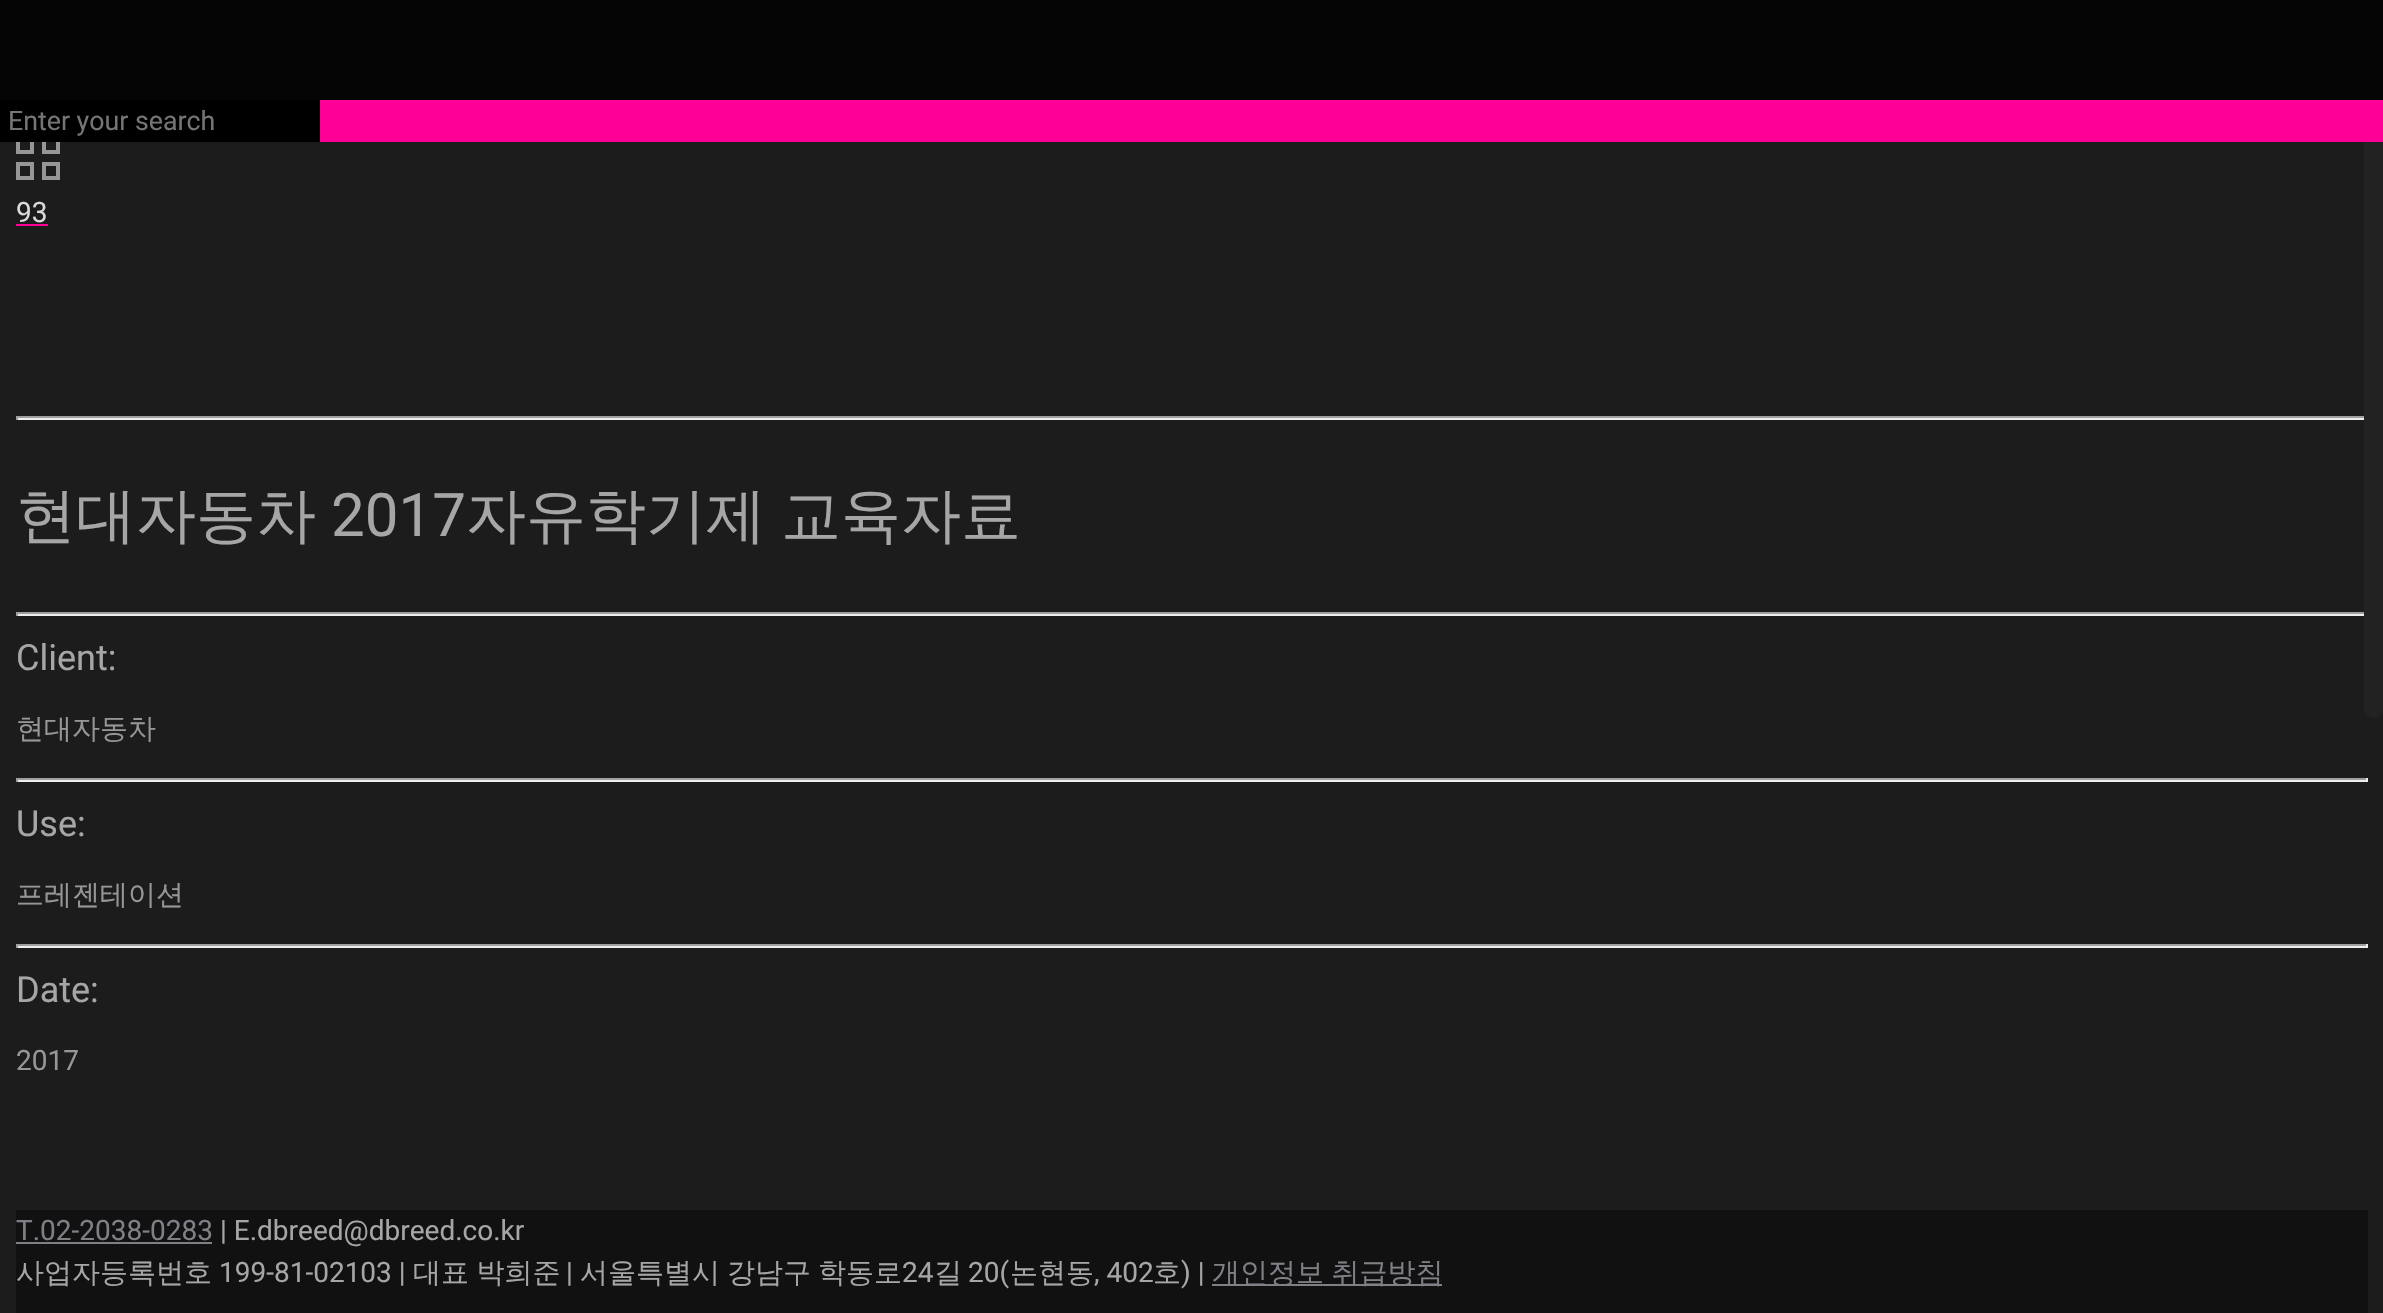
void draw(SkCanvas* canvas) {
	SkPaint paint;
	paint.setAntiAlias(true);
	auto spacedText = [&](const char* s, float x, float y, const SkFont& font, const SkPaint& ink, float letter, float word) {
		std::vector<SkGlyphID> glyphs(font.countText(s, strlen(s), SkTextEncoding::kUTF8));
		std::vector<float> xs(glyphs.size());
		font.textToGlyphs(s, strlen(s), SkTextEncoding::kUTF8, glyphs);
		font.getXPos(glyphs, xs, x);
		float extra = 0;
		for (size_t i = 0; i < glyphs.size(); i++) {
			xs[i] += extra;
			extra += letter + word * (glyphs[i] == font.unicharToGlyph(' '));
		}
		canvas->drawTextBlob(SkTextBlob::MakeFromPosHGlyphs(glyphs, xs, y, font), 0, 0, ink);
	};
	canvas->clear(0xff1c1c1c);
	paint.setColor(0xff9f9f9f);
	canvas->drawRect(SkRect::MakeXYWH(16, 416, 2352, 2), paint);
	paint.setColor(0xffeeeeee);
	canvas->drawRect(SkRect::MakeXYWH(16, 418, 2352, 2), paint);
	paint.setColor(0xff9f9f9f);
	canvas->drawRect(SkRect::MakeXYWH(16, 612, 2352, 2), paint);
	paint.setColor(0xffeeeeee);
	canvas->drawRect(SkRect::MakeXYWH(16, 614, 2352, 2), paint);
	paint.setColor(0xff222222);
	canvas->drawRoundRect(SkRect::MakeXYWH(2364, 0, 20, 718), 10, 10, paint);
	paint.setColor(0xff050505);
	canvas->drawRect(SkRect::MakeXYWH(0, 0, 2383, 100), paint);
	paint.setColor(0xffff0096);
	canvas->drawRect(SkRect::MakeXYWH(320, 100, 2063, 42), paint);
	paint.setColor(0xff000000);
	canvas->drawRect(SkRect::MakeXYWH(0, 100, 320, 42), paint);
	SkFont f1(fontMgr->matchFamilyStyle("Roboto", SkFontStyle::Normal()), 26.75);
	f1.setSubpixel(true);
	paint.setColor(0xff757575);
	canvas->drawString("Enter your search", 8, 130, f1, paint);
	canvas->drawImageRect(SkImages::DeferredFromEncodedData(SkData::MakeFromFileName("img1.png")), SkRect::MakeXYWH(16, 142, 44, 38), SkSamplingOptions());
	SkFont f2(fontMgr->matchFamilyStyle("Roboto", SkFontStyle::Normal()), 28);
	f2.setSubpixel(true);
	paint.setColor(0xffdbdbdb);
	canvas->drawString("93", 16, 222, f2, paint);
	paint.setColor(0xffff0096);
	canvas->drawRect(SkRect::MakeXYWH(16, 224, 32, 2), paint);
	paint.setColor(0xff9f9f9f);
	canvas->drawRect(SkRect::MakeXYWH(16, 416, 2, 4), paint);
	SkFont f3(fontMgr->matchFamilyStyle("WenQuanYi Zen Hei", SkFontStyle(500, SkFontStyle::kNormal_Width, SkFontStyle::kUpright_Slant)), 60);
	f3.setSubpixel(true);
	paint.setColor(0xffa6a6a6);
	canvas->drawString("현대자동차", 16, 536, f3, paint);
	SkFont f4(fontMgr->matchFamilyStyle("Roboto", SkFontStyle::Normal()), 60);
	f4.setSubpixel(true);
	canvas->drawString("2017", 331, 536, f4, paint);
	spacedText("자유학기제 교육자료", 466, 536, f3, paint, 0, -3);
	paint.setColor(0xff9f9f9f);
	canvas->drawRect(SkRect::MakeXYWH(16, 612, 2, 4), paint);
	SkFont f5(fontMgr->matchFamilyStyle("Roboto", SkFontStyle::Normal()), 36);
	f5.setSubpixel(true);
	paint.setColor(0xffa6a6a6);
	canvas->drawString("Client:", 16, 670, f5, paint);
	SkFont f6(fontMgr->matchFamilyStyle("WenQuanYi Zen Hei", SkFontStyle(500, SkFontStyle::kNormal_Width, SkFontStyle::kUpright_Slant)), 28);
	f6.setSubpixel(true);
	paint.setColor(0xff969696);
	canvas->drawString("현대자동차", 16, 738, f6, paint);
	paint.setColor(0xff9f9f9f);
	canvas->drawRect(SkRect::MakeXYWH(16, 778, 2352, 2), paint);
	paint.setColor(0xffeeeeee);
	canvas->drawRect(SkRect::MakeXYWH(2366, 778, 2, 4), paint);
	canvas->drawRect(SkRect::MakeXYWH(16, 780, 2352, 2), paint);
	paint.setColor(0xff9f9f9f);
	canvas->drawRect(SkRect::MakeXYWH(16, 778, 2, 4), paint);
	paint.setColor(0xffa6a6a6);
	canvas->drawString("Use:", 16, 836, f5, paint);
	paint.setColor(0xff969696);
	canvas->drawString("프레젠테이션", 16, 904, f6, paint);
	paint.setColor(0xff9f9f9f);
	canvas->drawRect(SkRect::MakeXYWH(16, 944, 2352, 2), paint);
	paint.setColor(0xffeeeeee);
	canvas->drawRect(SkRect::MakeXYWH(2366, 944, 2, 4), paint);
	canvas->drawRect(SkRect::MakeXYWH(16, 946, 2352, 2), paint);
	paint.setColor(0xff9f9f9f);
	canvas->drawRect(SkRect::MakeXYWH(16, 944, 2, 4), paint);
	paint.setColor(0xffa6a6a6);
	canvas->drawString("Date:", 16, 1002, f5, paint);
	paint.setColor(0xff969696);
	canvas->drawString("2017", 16, 1070, f2, paint);
	paint.setColor(0xff111111);
	canvas->drawRect(SkRect::MakeXYWH(16, 1210, 2352, 103), paint);
	paint.setColor(0xff817f86);
	canvas->drawString("T.02-2038-0283", 16, 1240, f2, paint);
	canvas->drawRect(SkRect::MakeXYWH(16, 1242, 196, 2), paint);
	paint.setColor(0xffa6a6a6);
	canvas->drawString("| E.dbreed@dbreed.co.kr", 220, 1240, f2, paint);
	canvas->drawString("사업자등록번호", 16, 1282, f6, paint);
	canvas->drawString("199-81-02103 |", 219, 1282, f2, paint);
	spacedText("대표 박희준", 413, 1282, f6, paint, 0, -1);
	canvas->drawString("|", 566, 1282, f2, paint);
	canvas->drawString("서울특별시", 580, 1282, f6, paint);
	canvas->drawString("강남구", 727, 1282, f6, paint);
	canvas->drawString("학동로", 818, 1282, f6, paint);
	canvas->drawString("24", 902, 1282, f2, paint);
	canvas->drawString("길", 934, 1282, f6, paint);
	canvas->drawString("20(", 968, 1282, f2, paint);
	canvas->drawString("논현동", 1010, 1282, f6, paint);
	canvas->drawString(", 402", 1094, 1282, f2, paint);
	canvas->drawString("호", 1153, 1282, f6, paint);
	canvas->drawString(") |", 1181, 1282, f2, paint);
	paint.setColor(0xff817f86);
	canvas->drawRect(SkRect::MakeXYWH(1212, 1284, 230, 2), paint);
	spacedText("개인정보 취급방침", 1212, 1282, f6, paint, 0, -1);
}
